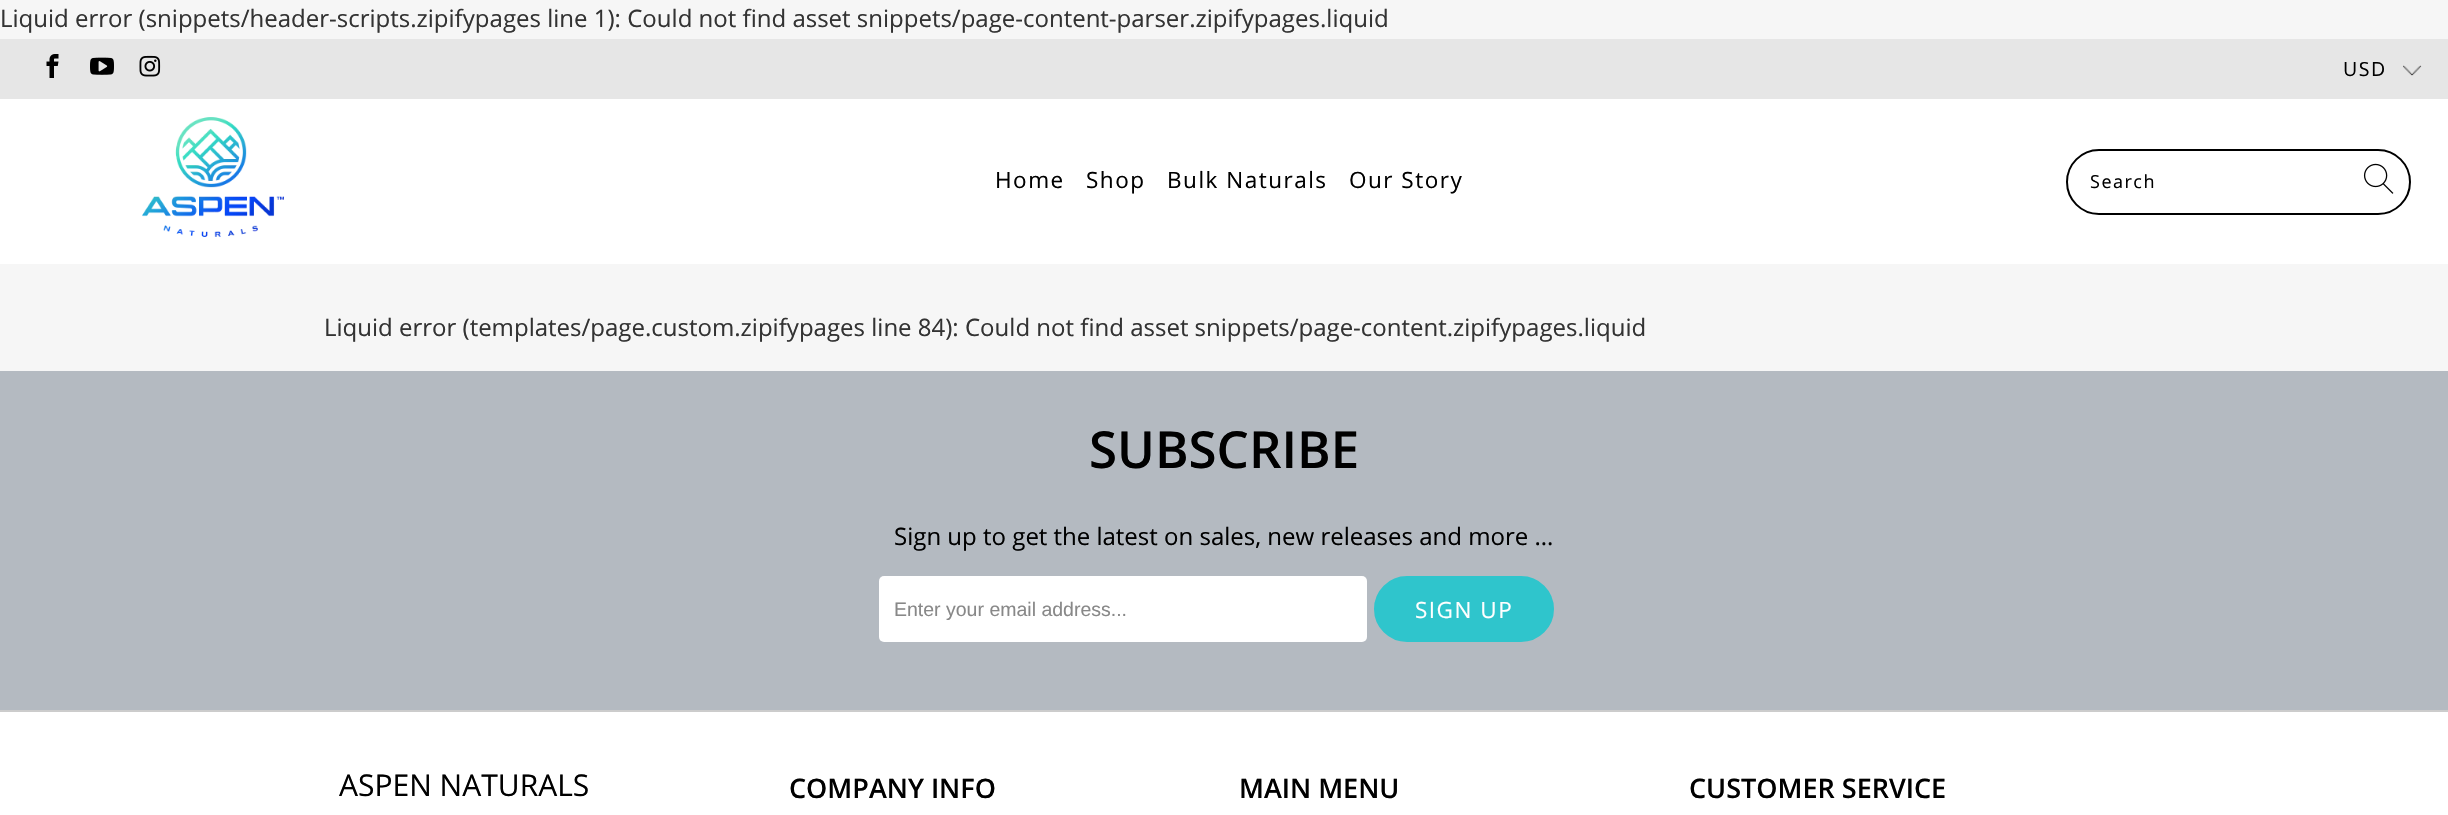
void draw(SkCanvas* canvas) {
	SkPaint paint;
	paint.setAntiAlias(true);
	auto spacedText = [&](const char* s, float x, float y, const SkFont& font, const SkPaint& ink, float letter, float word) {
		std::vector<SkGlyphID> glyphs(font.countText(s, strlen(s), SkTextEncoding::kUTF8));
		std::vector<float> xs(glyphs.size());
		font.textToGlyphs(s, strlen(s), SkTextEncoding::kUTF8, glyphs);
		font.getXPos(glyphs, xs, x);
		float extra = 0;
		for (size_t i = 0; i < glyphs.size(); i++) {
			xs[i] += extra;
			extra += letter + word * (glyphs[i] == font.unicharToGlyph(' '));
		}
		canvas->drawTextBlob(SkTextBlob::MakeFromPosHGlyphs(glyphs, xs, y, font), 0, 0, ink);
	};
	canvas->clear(0xfff6f6f6);
	SkFont f1(fontMgr->matchFamilyStyle("Open Sans", SkFontStyle::Normal()), 24);
	f1.setSubpixel(true);
	paint.setColor(0xff333333);
	canvas->drawString("Liquid error (snippets/header-scripts.zipifypages line 1): Could not find asset snippets/page-content-parser.zipifypages.liquid", 0, 27, f1, paint);
	paint.setColor(0xffe6e6e6);
	canvas->drawRect(SkRect::MakeXYWH(0, 39, 2448, 60), paint);
	canvas->drawImageRect(SkImages::DeferredFromEncodedData(SkData::MakeFromFileName("img1.png")), SkRect::MakeXYWH(46, 54, 13, 24), SkSamplingOptions());
	canvas->drawImageRect(SkImages::DeferredFromEncodedData(SkData::MakeFromFileName("img2.png")), SkRect::MakeXYWH(90, 57, 24, 18), SkSamplingOptions());
	canvas->drawImageRect(SkImages::DeferredFromEncodedData(SkData::MakeFromFileName("img3.png")), SkRect::MakeXYWH(139, 55, 22, 22), SkSamplingOptions());
	canvas->drawImageRect(SkImages::DeferredFromEncodedData(SkData::MakeFromFileName("img4.png")), SkRect::MakeXYWH(2403, 65, 19, 11), SkSamplingOptions());
	SkFont f2(fontMgr->matchFamilyStyle("Open Sans", SkFontStyle::Normal()), 19.5);
	f2.setSubpixel(true);
	paint.setColor(0xff000000);
	spacedText("USD", 2343, 76, f2, paint, 1.5, 0);
	paint.setColor(0xffffffff);
	canvas->drawRect(SkRect::MakeXYWH(0, 99, 2448, 165), paint);
	canvas->drawImageRect(SkImages::DeferredFromEncodedData(SkData::MakeFromFileName("img5.png")), SkRect::MakeXYWH(142, 117, 142, 120), SkSamplingOptions());
	SkFont f3(fontMgr->matchFamilyStyle("Open Sans", SkFontStyle::Normal()), 22.5);
	f3.setSubpixel(true);
	paint.setColor(0xff000000);
	spacedText("Home", 995, 188, f3, paint, 1.5, 0);
	spacedText("Shop", 1086, 188, f3, paint, 1.5, 0);
	spacedText("Bulk Naturals", 1167, 188, f3, paint, 1.5, 0);
	spacedText("Our Story", 1349, 188, f3, paint, 1.5, 0);
	paint.setStroke(true);
	paint.setStrokeWidth(2);
	canvas->drawRoundRect(SkRect::MakeXYWH(2067, 150, 343, 64), 32, 32, paint);
	SkFont f4(fontMgr->matchFamilyStyle("Open Sans", SkFontStyle::Normal()), 18);
	f4.setSubpixel(true);
	paint.setStroke(false);
	spacedText("Search", 2090, 188, f4, paint, 1.5, 0);
	canvas->drawImageRect(SkImages::DeferredFromEncodedData(SkData::MakeFromFileName("img6.png")), SkRect::MakeXYWH(2363, 163, 31, 31), SkSamplingOptions());
	paint.setColor(0xff333333);
	canvas->drawString("Liquid error (templates/page.custom.zipifypages line 84): Could not find asset snippets/page-content.zipifypages.liquid", 324, 336, f1, paint);
	paint.setColor(0xffb4bac1);
	canvas->drawRect(SkRect::MakeXYWH(0, 371, 2448, 339), paint);
	SkFont f5(fontMgr->matchFamilyStyle("Open Sans", SkFontStyle(600, SkFontStyle::kNormal_Width, SkFontStyle::kUpright_Slant)), 51);
	f5.setSubpixel(true);
	paint.setColor(0xff000000);
	canvas->drawString("SUBSCRIBE", 1089, 468, f5, paint);
	canvas->drawString("Sign up to get the latest on sales, new releases and more …", 894, 545, f1, paint);
	paint.setColor(0xffffffff);
	canvas->drawRoundRect(SkRect::MakeXYWH(879, 576, 488, 66), 5, 5, paint);
	SkFont f6(fontMgr->matchFamilyStyle("Liberation Sans", SkFontStyle::Normal()), 19.5);
	f6.setSubpixel(true);
	paint.setColor(0xff888888);
	canvas->drawString("Enter your email address...", 894, 616, f6, paint);
	paint.setColor(0xff2fc5cc);
	canvas->drawRoundRect(SkRect::MakeXYWH(1375, 577, 178, 64), 32, 32, paint);
	paint.setStroke(true);
	canvas->drawRoundRect(SkRect::MakeXYWH(1375, 577, 178, 64), 32, 32, paint);
	paint.setStroke(false);
	paint.setColor(0xffffffff);
	spacedText("SIGN UP", 1415, 618, f3, paint, 1.5, 0);
	canvas->drawRect(SkRect::MakeXYWH(0, 712, 2448, 103), paint);
	paint.setColor(0xffcccccc);
	canvas->drawRect(SkRect::MakeXYWH(0, 710, 2448, 2), paint);
	SkFont f7(fontMgr->matchFamilyStyle("Open Sans", SkFontStyle::Normal()), 30);
	f7.setSubpixel(true);
	paint.setColor(0xff000000);
	canvas->drawString("ASPEN NATURALS", 339, 796, f7, paint);
	SkFont f8(fontMgr->matchFamilyStyle("Open Sans", SkFontStyle(600, SkFontStyle::kNormal_Width, SkFontStyle::kUpright_Slant)), 27);
	f8.setSubpixel(true);
	canvas->drawString("COMPANY INFO", 789, 798, f8, paint);
	canvas->drawString("MAIN MENU", 1239, 798, f8, paint);
	canvas->drawString("CUSTOMER SERVICE", 1689, 798, f8, paint);
}
